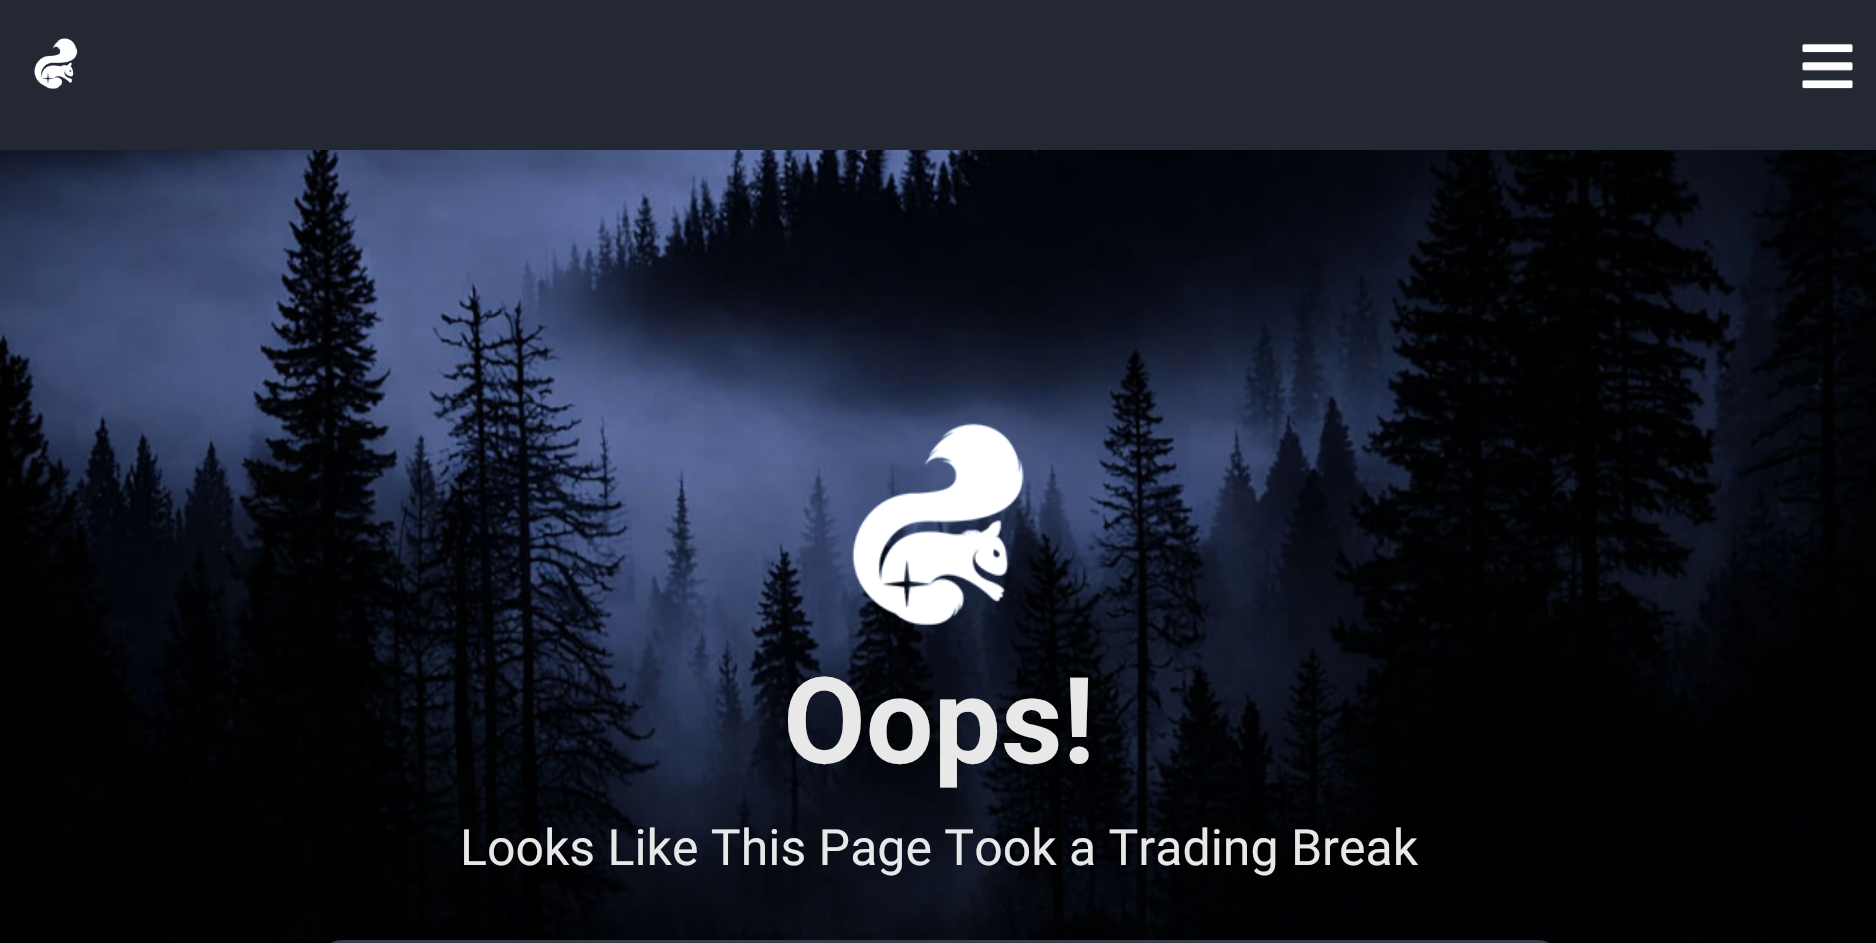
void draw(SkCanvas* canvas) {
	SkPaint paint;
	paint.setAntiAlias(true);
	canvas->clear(0xffffffff);
	paint.setColor(0xff242832);
	canvas->drawRect(SkRect::MakeXYWH(0, 0, 1876, 150), paint);
	canvas->drawImageRect(SkImages::DeferredFromEncodedData(SkData::MakeFromFileName("img1.png")), SkRect::MakeXYWH(34, 38, 44, 51), SkSamplingOptions());
	canvas->drawImageRect(SkImages::DeferredFromEncodedData(SkData::MakeFromFileName("img2.png")), SkRect::MakeXYWH(1802, 43, 51, 46), SkSamplingOptions());
	canvas->drawImageRect(SkImages::DeferredFromEncodedData(SkData::MakeFromFileName("img3.png")), SkRect::MakeXYWH(0, 150, 1876, 793), SkSamplingOptions());
	canvas->drawImageRect(SkImages::DeferredFromEncodedData(SkData::MakeFromFileName("img4.png")), SkRect::MakeXYWH(852, 423, 172, 204), SkSamplingOptions());
	SkFont f1(fontMgr->matchFamilyStyle("Roboto", SkFontStyle::Bold()), 120);
	f1.setSubpixel(true);
	paint.setColor(0xffe8e8e8);
	canvas->drawString("Oops!", 783, 763, f1, paint);
	SkFont f2(fontMgr->matchFamilyStyle("Roboto", SkFontStyle::Normal()), 50);
	f2.setSubpixel(true);
	canvas->drawString("Looks Like This Page Took a Trading Break", 460, 865, f2, paint);
	paint.setStroke(true);
	paint.setStrokeWidth(3);
	paint.setColor(0xff383c45);
	canvas->drawRoundRect(SkRect::MakeXYWH(316.5, 941.5, 1247, 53), 48.5, 48.5, paint);
}
